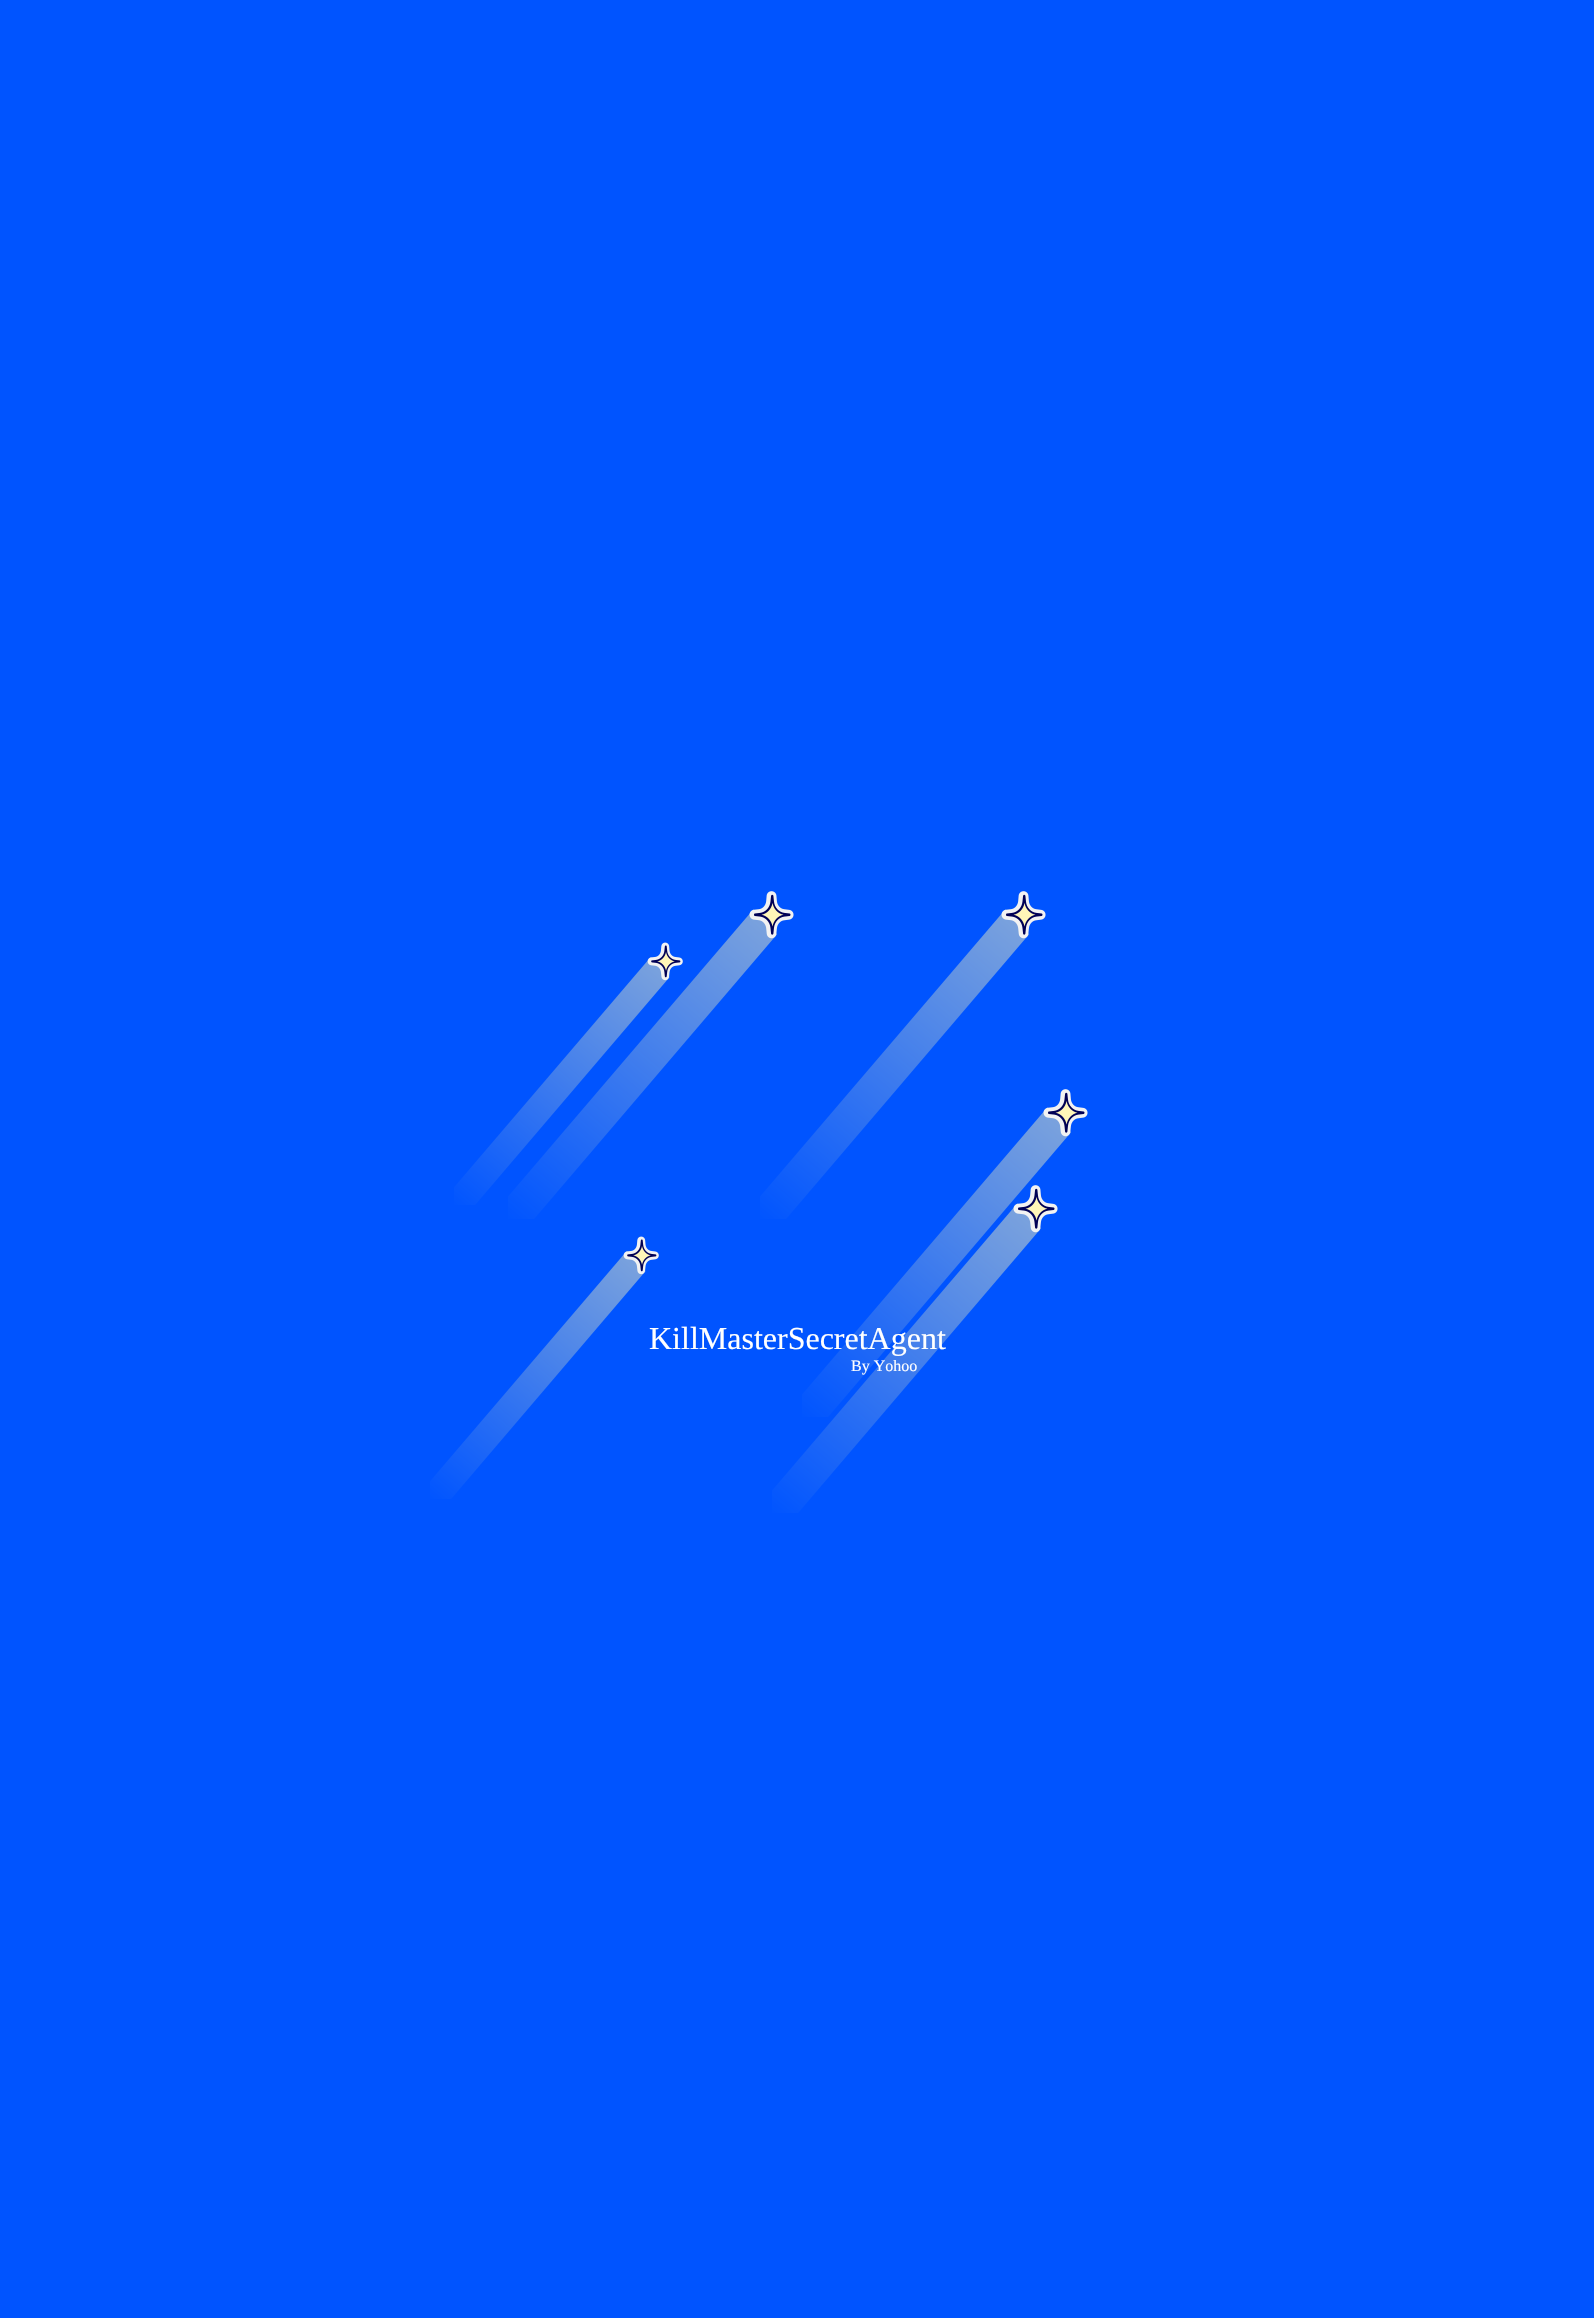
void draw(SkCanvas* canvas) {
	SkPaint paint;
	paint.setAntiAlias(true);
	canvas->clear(0xff0054ff);
	canvas->drawImageRect(SkImages::DeferredFromEncodedData(SkData::MakeFromFileName("img1.png")), SkRect::MakeXYWH(508, 891, 286, 328), SkSamplingOptions());
	canvas->drawImageRect(SkImages::DeferredFromEncodedData(SkData::MakeFromFileName("img2.png")), SkRect::MakeXYWH(760, 891, 286, 328), SkSamplingOptions());
	canvas->drawImageRect(SkImages::DeferredFromEncodedData(SkData::MakeFromFileName("img3.png")), SkRect::MakeXYWH(454, 942, 229, 263), SkSamplingOptions());
	canvas->drawImageRect(SkImages::DeferredFromEncodedData(SkData::MakeFromFileName("img4.png")), SkRect::MakeXYWH(802, 1089, 286, 328), SkSamplingOptions());
	canvas->drawImageRect(SkImages::DeferredFromEncodedData(SkData::MakeFromFileName("img5.png")), SkRect::MakeXYWH(430, 1236, 229, 263), SkSamplingOptions());
	canvas->drawImageRect(SkImages::DeferredFromEncodedData(SkData::MakeFromFileName("img6.png")), SkRect::MakeXYWH(772, 1185, 286, 328), SkSamplingOptions());
	SkFont f1(fontMgr->matchFamilyStyle("Liberation Serif", SkFontStyle::Normal()), 32);
	f1.setSubpixel(true);
	paint.setColor(0xffffffff);
	canvas->drawString("KillMasterSecretAgent", 649, 1349, f1, paint);
	SkFont f2(fontMgr->matchFamilyStyle("Liberation Serif", SkFontStyle::Normal()), 16);
	f2.setSubpixel(true);
	canvas->drawString("By Yohoo", 851, 1371, f2, paint);
}
